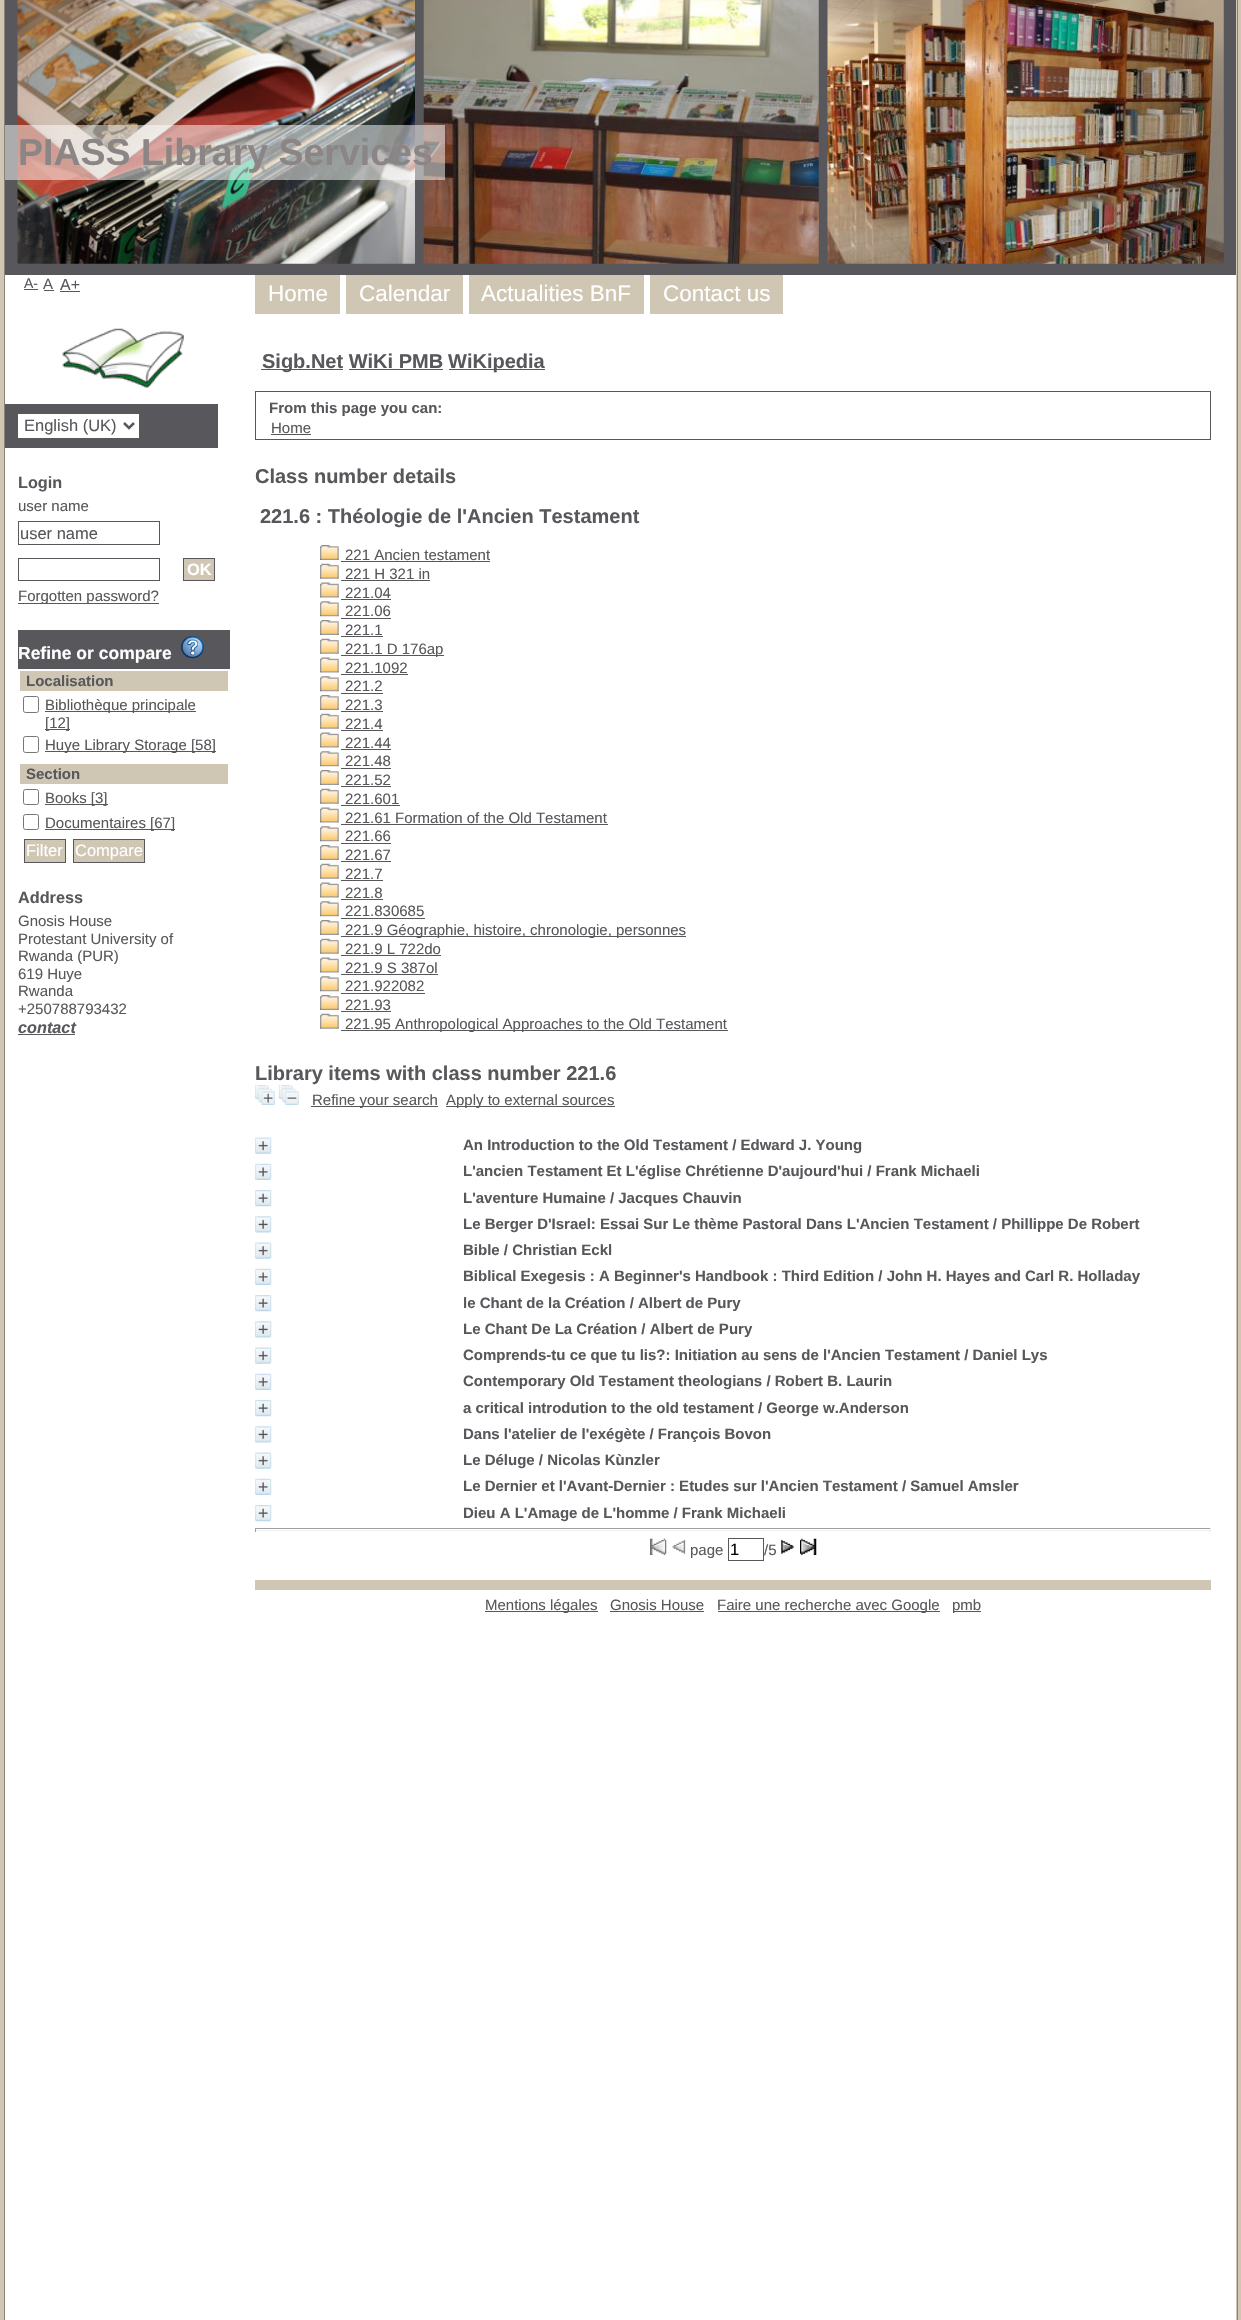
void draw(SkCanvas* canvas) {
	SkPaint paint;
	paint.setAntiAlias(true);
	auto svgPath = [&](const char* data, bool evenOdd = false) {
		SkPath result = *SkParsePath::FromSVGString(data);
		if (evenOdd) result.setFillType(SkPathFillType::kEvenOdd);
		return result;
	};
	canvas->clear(0xffd0c6b4);
	paint.setStroke(true);
	paint.setStrokeWidth(1);
	paint.setColor(0xff898377);
	canvas->drawRect(SkRect::MakeXYWH(4.5, -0.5, 1233, 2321), paint);
	paint.setStroke(false);
	paint.setColor(0xffffffff);
	canvas->drawRect(SkRect::MakeXYWH(5, 275, 1231, 2045), paint);
	paint.setColor(0xff58585c);
	canvas->drawRect(SkRect::MakeXYWH(5, 0, 1231, 275), paint);
	canvas->drawImageRect(SkImages::DeferredFromEncodedData(SkData::MakeFromFileName("img19.png")), SkRect::MakeXYWH(17, 0, 398, 264), SkSamplingOptions());
	canvas->drawImageRect(SkImages::DeferredFromEncodedData(SkData::MakeFromFileName("img20.png")), SkRect::MakeXYWH(423, 0, 396, 264), SkSamplingOptions());
	paint.setColor(0x80ffffff);
	canvas->drawRect(SkRect::MakeXYWH(5, 125, 440, 55), paint);
	SkFont f1(fontMgr->matchFamilyStyle("Liberation Sans", SkFontStyle::Bold()), 37.5);
	f1.setSubpixel(true);
	paint.setColor(0xff8b8585);
	canvas->drawString("PIASS Library Services", 18, 165, f1, paint);
	paint.setColor(0xff58585c);
	canvas->drawRect(SkRect::MakeXYWH(261, 369, 82, 1), paint);
	SkFont f2(fontMgr->matchFamilyStyle("Liberation Sans", SkFontStyle::Bold()), 20);
	f2.setSubpixel(true);
	canvas->drawString("Sigb.Net WiKi PMB", 262, 368, f2, paint);
	canvas->drawRect(SkRect::MakeXYWH(449, 369, 96, 1), paint);
	canvas->drawString("WiKipedia", 448, 368, f2, paint);
	canvas->drawRect(SkRect::MakeXYWH(349, 369, 94, 1), paint);
	paint.setStroke(true);
	canvas->drawRect(SkRect::MakeXYWH(255.5, 391.5, 955, 48), paint);
	SkFont f3(fontMgr->matchFamilyStyle("Liberation Sans", SkFontStyle::Bold()), 15);
	f3.setSubpixel(true);
	paint.setStroke(false);
	canvas->drawString("From this page you can:", 269, 413, f3, paint);
	SkFont f4(fontMgr->matchFamilyStyle("Liberation Sans", SkFontStyle::Normal()), 15);
	f4.setSubpixel(true);
	canvas->drawString("Home", 271, 433, f4, paint);
	canvas->drawRect(SkRect::MakeXYWH(271, 434, 40, 1), paint);
	canvas->drawString("Class number details", 255, 483, f2, paint);
	canvas->drawString("221.6 : Théologie de l'Ancien Testament", 260, 523, f2, paint);
	canvas->drawImageRect(SkImages::DeferredFromEncodedData(SkData::MakeFromFileName("img1.png")), SkRect::MakeXYWH(320, 545, 19, 15), SkSamplingOptions());
	canvas->drawString("221 Ancien testament", 345, 560, f4, paint);
	canvas->drawRect(SkRect::MakeXYWH(341, 561, 149, 1), paint);
	canvas->drawImageRect(SkImages::DeferredFromEncodedData(SkData::MakeFromFileName("img2.png")), SkRect::MakeXYWH(320, 563, 19, 16), SkSamplingOptions());
	canvas->drawString("221 H 321 in", 345, 579, f4, paint);
	canvas->drawRect(SkRect::MakeXYWH(341, 580, 89, 1), paint);
	canvas->drawImageRect(SkImages::DeferredFromEncodedData(SkData::MakeFromFileName("img3.png")), SkRect::MakeXYWH(320, 582, 19, 16), SkSamplingOptions());
	canvas->drawString("221.04", 345, 598, f4, paint);
	canvas->drawRect(SkRect::MakeXYWH(341, 599, 50, 1), paint);
	canvas->drawImageRect(SkImages::DeferredFromEncodedData(SkData::MakeFromFileName("img4.png")), SkRect::MakeXYWH(320, 601, 19, 16), SkSamplingOptions());
	canvas->drawString("221.06", 345, 616, f4, paint);
	canvas->drawRect(SkRect::MakeXYWH(341, 618, 50, 1), paint);
	canvas->drawImageRect(SkImages::DeferredFromEncodedData(SkData::MakeFromFileName("img1.png")), SkRect::MakeXYWH(320, 620, 19, 15), SkSamplingOptions());
	canvas->drawString("221.1", 345, 635, f4, paint);
	canvas->drawRect(SkRect::MakeXYWH(341, 636, 42, 1), paint);
	canvas->drawImageRect(SkImages::DeferredFromEncodedData(SkData::MakeFromFileName("img2.png")), SkRect::MakeXYWH(320, 638, 19, 16), SkSamplingOptions());
	canvas->drawRect(SkRect::MakeXYWH(341, 655, 103, 1), paint);
	canvas->drawString("221.1 D 176ap", 345, 654, f4, paint);
	canvas->drawImageRect(SkImages::DeferredFromEncodedData(SkData::MakeFromFileName("img5.png")), SkRect::MakeXYWH(320, 657, 19, 16), SkSamplingOptions());
	canvas->drawString("221.1092", 345, 673, f4, paint);
	canvas->drawRect(SkRect::MakeXYWH(341, 674, 67, 1), paint);
	canvas->drawImageRect(SkImages::DeferredFromEncodedData(SkData::MakeFromFileName("img4.png")), SkRect::MakeXYWH(320, 676, 19, 16), SkSamplingOptions());
	canvas->drawString("221.2", 345, 691, f4, paint);
	canvas->drawRect(SkRect::MakeXYWH(341, 693, 42, 1), paint);
	canvas->drawImageRect(SkImages::DeferredFromEncodedData(SkData::MakeFromFileName("img1.png")), SkRect::MakeXYWH(320, 695, 19, 15), SkSamplingOptions());
	canvas->drawString("221.3", 345, 710, f4, paint);
	canvas->drawRect(SkRect::MakeXYWH(341, 711, 42, 1), paint);
	canvas->drawImageRect(SkImages::DeferredFromEncodedData(SkData::MakeFromFileName("img2.png")), SkRect::MakeXYWH(320, 713, 19, 16), SkSamplingOptions());
	canvas->drawString("221.4", 345, 729, f4, paint);
	canvas->drawRect(SkRect::MakeXYWH(341, 730, 42, 1), paint);
	canvas->drawImageRect(SkImages::DeferredFromEncodedData(SkData::MakeFromFileName("img5.png")), SkRect::MakeXYWH(320, 732, 19, 16), SkSamplingOptions());
	canvas->drawString("221.44", 345, 748, f4, paint);
	canvas->drawRect(SkRect::MakeXYWH(341, 749, 50, 1), paint);
	canvas->drawImageRect(SkImages::DeferredFromEncodedData(SkData::MakeFromFileName("img4.png")), SkRect::MakeXYWH(320, 751, 19, 16), SkSamplingOptions());
	canvas->drawString("221.48", 345, 766, f4, paint);
	canvas->drawRect(SkRect::MakeXYWH(341, 768, 50, 1), paint);
	canvas->drawImageRect(SkImages::DeferredFromEncodedData(SkData::MakeFromFileName("img1.png")), SkRect::MakeXYWH(320, 770, 19, 15), SkSamplingOptions());
	canvas->drawString("221.52", 345, 785, f4, paint);
	canvas->drawRect(SkRect::MakeXYWH(341, 786, 50, 1), paint);
	canvas->drawImageRect(SkImages::DeferredFromEncodedData(SkData::MakeFromFileName("img2.png")), SkRect::MakeXYWH(320, 788, 19, 16), SkSamplingOptions());
	canvas->drawString("221.601", 345, 804, f4, paint);
	canvas->drawRect(SkRect::MakeXYWH(341, 805, 59, 1), paint);
	canvas->drawImageRect(SkImages::DeferredFromEncodedData(SkData::MakeFromFileName("img5.png")), SkRect::MakeXYWH(320, 807, 19, 16), SkSamplingOptions());
	canvas->drawString("221.61 Formation of the Old Testament", 345, 823, f4, paint);
	canvas->drawRect(SkRect::MakeXYWH(341, 824, 267, 1), paint);
	canvas->drawImageRect(SkImages::DeferredFromEncodedData(SkData::MakeFromFileName("img4.png")), SkRect::MakeXYWH(320, 826, 19, 16), SkSamplingOptions());
	canvas->drawString("221.66", 345, 841, f4, paint);
	canvas->drawRect(SkRect::MakeXYWH(341, 843, 50, 1), paint);
	canvas->drawImageRect(SkImages::DeferredFromEncodedData(SkData::MakeFromFileName("img1.png")), SkRect::MakeXYWH(320, 845, 19, 15), SkSamplingOptions());
	canvas->drawString("221.67", 345, 860, f4, paint);
	canvas->drawRect(SkRect::MakeXYWH(341, 861, 50, 1), paint);
	canvas->drawImageRect(SkImages::DeferredFromEncodedData(SkData::MakeFromFileName("img2.png")), SkRect::MakeXYWH(320, 863, 19, 16), SkSamplingOptions());
	canvas->drawString("221.7", 345, 879, f4, paint);
	canvas->drawRect(SkRect::MakeXYWH(341, 880, 42, 1), paint);
	canvas->drawImageRect(SkImages::DeferredFromEncodedData(SkData::MakeFromFileName("img5.png")), SkRect::MakeXYWH(320, 882, 19, 16), SkSamplingOptions());
	canvas->drawString("221.8", 345, 898, f4, paint);
	canvas->drawRect(SkRect::MakeXYWH(341, 899, 42, 1), paint);
	canvas->drawImageRect(SkImages::DeferredFromEncodedData(SkData::MakeFromFileName("img4.png")), SkRect::MakeXYWH(320, 901, 19, 16), SkSamplingOptions());
	canvas->drawString("221.830685", 345, 916, f4, paint);
	canvas->drawRect(SkRect::MakeXYWH(341, 918, 84, 1), paint);
	canvas->drawImageRect(SkImages::DeferredFromEncodedData(SkData::MakeFromFileName("img1.png")), SkRect::MakeXYWH(320, 920, 19, 15), SkSamplingOptions());
	canvas->drawRect(SkRect::MakeXYWH(341, 936, 345, 1), paint);
	canvas->drawString("221.9 Géographie, histoire, chronologie, personnes", 345, 935, f4, paint);
	canvas->drawImageRect(SkImages::DeferredFromEncodedData(SkData::MakeFromFileName("img2.png")), SkRect::MakeXYWH(320, 938, 19, 16), SkSamplingOptions());
	canvas->drawString("221.9 L 722do", 345, 954, f4, paint);
	canvas->drawRect(SkRect::MakeXYWH(341, 955, 100, 1), paint);
	canvas->drawImageRect(SkImages::DeferredFromEncodedData(SkData::MakeFromFileName("img5.png")), SkRect::MakeXYWH(320, 957, 19, 16), SkSamplingOptions());
	canvas->drawString("221.9 S 387ol", 345, 973, f4, paint);
	canvas->drawRect(SkRect::MakeXYWH(341, 974, 97, 1), paint);
	canvas->drawImageRect(SkImages::DeferredFromEncodedData(SkData::MakeFromFileName("img4.png")), SkRect::MakeXYWH(320, 976, 19, 16), SkSamplingOptions());
	canvas->drawString("221.922082", 345, 991, f4, paint);
	canvas->drawRect(SkRect::MakeXYWH(341, 993, 84, 1), paint);
	canvas->drawImageRect(SkImages::DeferredFromEncodedData(SkData::MakeFromFileName("img1.png")), SkRect::MakeXYWH(320, 995, 19, 15), SkSamplingOptions());
	canvas->drawString("221.93", 345, 1010, f4, paint);
	canvas->drawRect(SkRect::MakeXYWH(341, 1011, 50, 1), paint);
	canvas->drawImageRect(SkImages::DeferredFromEncodedData(SkData::MakeFromFileName("img2.png")), SkRect::MakeXYWH(320, 1013, 19, 16), SkSamplingOptions());
	canvas->drawRect(SkRect::MakeXYWH(341, 1030, 387, 1), paint);
	canvas->drawString("221.95 Anthropological Approaches to the Old Testament", 345, 1029, f4, paint);
	canvas->drawString("Library items with class number 221.6", 255, 1080, f2, paint);
	canvas->drawImageRect(SkImages::DeferredFromEncodedData(SkData::MakeFromFileName("img6.png")), SkRect::MakeXYWH(255, 1085, 20, 20), SkSamplingOptions());
	canvas->drawImageRect(SkImages::DeferredFromEncodedData(SkData::MakeFromFileName("img7.png")), SkRect::MakeXYWH(278, 1085, 21, 20), SkSamplingOptions());
	canvas->drawRect(SkRect::MakeXYWH(311, 1106, 127, 1), paint);
	canvas->drawString("Refine your search", 312, 1105, f4, paint);
	canvas->drawRect(SkRect::MakeXYWH(446, 1106, 169, 1), paint);
	canvas->drawString("Apply to external sources", 446, 1105, f4, paint);
	canvas->drawImageRect(SkImages::DeferredFromEncodedData(SkData::MakeFromFileName("img8.png")), SkRect::MakeXYWH(255, 1137, 17, 17), SkSamplingOptions());
	canvas->drawString("An Introduction to the Old Testament / Edward J. Young", 463, 1150, f3, paint);
	canvas->drawImageRect(SkImages::DeferredFromEncodedData(SkData::MakeFromFileName("img9.png")), SkRect::MakeXYWH(255, 1163, 17, 17), SkSamplingOptions());
	canvas->drawString("L'ancien Testament Et L'église Chrétienne D'aujourd'hui / Frank Michaeli", 463, 1176, f3, paint);
	canvas->drawImageRect(SkImages::DeferredFromEncodedData(SkData::MakeFromFileName("img10.png")), SkRect::MakeXYWH(255, 1190, 17, 17), SkSamplingOptions());
	canvas->drawString("L'aventure Humaine / Jacques Chauvin", 463, 1203, f3, paint);
	canvas->drawImageRect(SkImages::DeferredFromEncodedData(SkData::MakeFromFileName("img11.png")), SkRect::MakeXYWH(255, 1216, 17, 17), SkSamplingOptions());
	canvas->drawString("Le Berger D'Israel: Essai Sur Le thème Pastoral Dans L'Ancien Testament / Phillippe De Robert", 463, 1229, f3, paint);
	canvas->drawImageRect(SkImages::DeferredFromEncodedData(SkData::MakeFromFileName("img8.png")), SkRect::MakeXYWH(255, 1242, 17, 17), SkSamplingOptions());
	canvas->drawString("Bible / Christian Eckl", 463, 1255, f3, paint);
	canvas->drawImageRect(SkImages::DeferredFromEncodedData(SkData::MakeFromFileName("img12.png")), SkRect::MakeXYWH(255, 1268, 17, 17), SkSamplingOptions());
	canvas->drawString("Biblical Exegesis : A Beginner's Handbook : Third Edition / John H. Hayes and Carl R. Holladay", 463, 1281, f3, paint);
	canvas->drawImageRect(SkImages::DeferredFromEncodedData(SkData::MakeFromFileName("img10.png")), SkRect::MakeXYWH(255, 1295, 17, 17), SkSamplingOptions());
	canvas->drawString("le Chant de la Création / Albert de Pury", 463, 1308, f3, paint);
	canvas->drawImageRect(SkImages::DeferredFromEncodedData(SkData::MakeFromFileName("img11.png")), SkRect::MakeXYWH(255, 1321, 17, 17), SkSamplingOptions());
	canvas->drawString("Le Chant De La Création / Albert de Pury", 463, 1334, f3, paint);
	canvas->drawImageRect(SkImages::DeferredFromEncodedData(SkData::MakeFromFileName("img8.png")), SkRect::MakeXYWH(255, 1347, 17, 17), SkSamplingOptions());
	canvas->drawString("Comprends-tu ce que tu lis?: Initiation au sens de l'Ancien Testament / Daniel Lys", 463, 1360, f3, paint);
	canvas->drawImageRect(SkImages::DeferredFromEncodedData(SkData::MakeFromFileName("img12.png")), SkRect::MakeXYWH(255, 1373, 17, 17), SkSamplingOptions());
	canvas->drawString("Contemporary Old Testament theologians / Robert B. Laurin", 463, 1386, f3, paint);
	canvas->drawImageRect(SkImages::DeferredFromEncodedData(SkData::MakeFromFileName("img10.png")), SkRect::MakeXYWH(255, 1400, 17, 17), SkSamplingOptions());
	canvas->drawString("a critical introdution to the old testament / George w.Anderson", 463, 1413, f3, paint);
	canvas->drawImageRect(SkImages::DeferredFromEncodedData(SkData::MakeFromFileName("img11.png")), SkRect::MakeXYWH(255, 1426, 17, 17), SkSamplingOptions());
	canvas->drawString("Dans l'atelier de l'exégète / François Bovon", 463, 1439, f3, paint);
	canvas->drawImageRect(SkImages::DeferredFromEncodedData(SkData::MakeFromFileName("img8.png")), SkRect::MakeXYWH(255, 1452, 17, 17), SkSamplingOptions());
	canvas->drawString("Le Déluge / Nicolas Kùnzler", 463, 1465, f3, paint);
	canvas->drawImageRect(SkImages::DeferredFromEncodedData(SkData::MakeFromFileName("img12.png")), SkRect::MakeXYWH(255, 1478, 17, 17), SkSamplingOptions());
	canvas->drawString("Le Dernier et l'Avant-Dernier : Etudes sur l'Ancien Testament / Samuel Amsler", 463, 1491, f3, paint);
	canvas->drawImageRect(SkImages::DeferredFromEncodedData(SkData::MakeFromFileName("img10.png")), SkRect::MakeXYWH(255, 1505, 17, 17), SkSamplingOptions());
	canvas->drawString("Dieu A L'Amage de L'homme / Frank Michaeli", 463, 1518, f3, paint);
	paint.setColor(0xff9f9f9f);
	canvas->drawRect(SkRect::MakeXYWH(255, 1528, 956, 1), paint);
	paint.setColor(0xffeeeeee);
	canvas->drawRect(SkRect::MakeXYWH(1210, 1528, 1, 4), paint);
	canvas->drawRect(SkRect::MakeXYWH(255, 1530, 956, 1), paint);
	paint.setColor(0xff9f9f9f);
	canvas->drawRect(SkRect::MakeXYWH(255, 1528, 1, 4), paint);
	canvas->drawImageRect(SkImages::DeferredFromEncodedData(SkData::MakeFromFileName("img13.png")), SkRect::MakeXYWH(650, 1538, 17, 17), SkSamplingOptions());
	canvas->drawImageRect(SkImages::DeferredFromEncodedData(SkData::MakeFromFileName("img14.png")), SkRect::MakeXYWH(672, 1539, 14, 15), SkSamplingOptions());
	paint.setColor(0xff58585c);
	canvas->drawString("page", 690, 1555, f4, paint);
	paint.setStroke(true);
	canvas->drawRect(SkRect::MakeXYWH(728.5, 1538.5, 35, 22), paint);
	SkFont f5(fontMgr->matchFamilyStyle("Liberation Sans", SkFontStyle::Normal()), 16.5);
	f5.setSubpixel(true);
	paint.setStroke(false);
	paint.setColor(0xff000000);
	canvas->drawString("1", 730, 1555, f5, paint);
	paint.setColor(0xff58585c);
	canvas->drawString("/5", 764, 1555, f4, paint);
	canvas->drawImageRect(SkImages::DeferredFromEncodedData(SkData::MakeFromFileName("img15.png")), SkRect::MakeXYWH(781, 1539, 13, 15), SkSamplingOptions());
	canvas->drawImageRect(SkImages::DeferredFromEncodedData(SkData::MakeFromFileName("img16.png")), SkRect::MakeXYWH(800, 1538, 17, 17), SkSamplingOptions());
	paint.setColor(0xffd0c6b4);
	canvas->drawRect(SkRect::MakeXYWH(255, 1580, 956, 10), paint);
	paint.setColor(0xff58585c);
	canvas->drawRect(SkRect::MakeXYWH(485, 1611, 113, 1), paint);
	canvas->drawString("Mentions légales", 485, 1610, f4, paint);
	canvas->drawString("Gnosis House", 610, 1610, f4, paint);
	canvas->drawRect(SkRect::MakeXYWH(610, 1611, 94, 1), paint);
	canvas->drawRect(SkRect::MakeXYWH(718, 1611, 222, 1), paint);
	canvas->drawString("Faire une recherche avec Google", 717, 1610, f4, paint);
	canvas->drawRect(SkRect::MakeXYWH(953, 1611, 28, 1), paint);
	canvas->drawString("pmb", 952, 1610, f4, paint);
	SkFont f6(fontMgr->matchFamilyStyle("Liberation Sans", SkFontStyle::Normal()), 14);
	f6.setSubpixel(true);
	canvas->drawString("A-", 24, 288, f6, paint);
	canvas->drawRect(SkRect::MakeXYWH(24, 289, 14, 1), paint);
	canvas->drawString("A", 43, 289, f4, paint);
	canvas->drawRect(SkRect::MakeXYWH(44, 290, 10, 1), paint);
	SkFont f7(fontMgr->matchFamilyStyle("Liberation Sans", SkFontStyle::Normal()), 16);
	f7.setSubpixel(true);
	canvas->drawString("A+", 60, 290, f7, paint);
	canvas->drawRect(SkRect::MakeXYWH(60, 291, 20, 1), paint);
	canvas->drawImageRect(SkImages::DeferredFromEncodedData(SkData::MakeFromFileName("img17.png")), SkRect::MakeXYWH(62, 328, 122, 60), SkSamplingOptions());
	canvas->drawRect(SkRect::MakeXYWH(5, 404, 213, 44), paint);
	paint.setColor(0xffffffff);
	canvas->drawRect(SkRect::MakeXYWH(18, 414, 121, 24), paint);
	paint.setStroke(true);
	paint.setStrokeWidth(2.5);
	paint.setColor(0xff58585c);
	canvas->drawPath(svgPath("M124 423L129 428L134 423"), paint);
	paint.setStroke(false);
	canvas->drawString("English (UK)", 24, 431, f5, paint);
	SkFont f8(fontMgr->matchFamilyStyle("Liberation Sans", SkFontStyle::Bold()), 16.25);
	f8.setSubpixel(true);
	canvas->drawString("Login", 18, 488, f8, paint);
	canvas->drawString("user name", 18, 511, f4, paint);
	paint.setStroke(true);
	paint.setStrokeWidth(1);
	canvas->drawRect(SkRect::MakeXYWH(18.5, 521.5, 141, 23), paint);
	paint.setStroke(false);
	canvas->drawString("user name", 20, 539, f5, paint);
	paint.setStroke(true);
	canvas->drawRect(SkRect::MakeXYWH(18.5, 558.5, 141, 22), paint);
	paint.setStroke(false);
	paint.setColor(0xffd0c6b4);
	canvas->drawRect(SkRect::MakeXYWH(183.5, 558.5, 31, 22), paint);
	paint.setStroke(true);
	paint.setColor(0xff58585c);
	canvas->drawRect(SkRect::MakeXYWH(183.5, 558.5, 31, 22), paint);
	SkFont f9(fontMgr->matchFamilyStyle("Liberation Sans", SkFontStyle::Bold()), 16.5);
	f9.setSubpixel(true);
	paint.setStroke(false);
	paint.setColor(0xffffffff);
	canvas->drawString("OK", 187, 575, f9, paint);
	paint.setColor(0xff58585c);
	canvas->drawRect(SkRect::MakeXYWH(18, 603, 141, 1), paint);
	canvas->drawString("Forgotten password?", 18, 601, f4, paint);
	canvas->drawRect(SkRect::MakeXYWH(18, 630, 212, 39), paint);
	SkFont f10(fontMgr->matchFamilyStyle("Liberation Sans", SkFontStyle::Bold()), 17.5);
	f10.setSubpixel(true);
	paint.setColor(0xffffffff);
	canvas->drawString("Refine or compare", 18, 659, f10, paint);
	canvas->drawImageRect(SkImages::DeferredFromEncodedData(SkData::MakeFromFileName("img18.png")), SkRect::MakeXYWH(181, 636, 23, 23), SkSamplingOptions());
	paint.setColor(0xffd0c6b4);
	canvas->drawRect(SkRect::MakeXYWH(20, 671, 208, 20), paint);
	paint.setColor(0xff58585c);
	canvas->drawString("Localisation", 26, 686, f3, paint);
	paint.setStroke(true);
	paint.setColor(0xff767676);
	canvas->drawRoundRect(SkRect::MakeXYWH(23.5, 696.5, 15, 16), 2, 2, paint);
	paint.setStroke(false);
	paint.setColor(0xff58585c);
	canvas->drawRect(SkRect::MakeXYWH(45, 711, 151, 1), paint);
	canvas->drawString("Bibliothèque principale", 45, 710, f4, paint);
	canvas->drawRect(SkRect::MakeXYWH(45, 729, 25, 1), paint);
	canvas->drawString("[12]", 45, 728, f4, paint);
	paint.setStroke(true);
	paint.setColor(0xff767676);
	canvas->drawRoundRect(SkRect::MakeXYWH(23.5, 736.5, 15, 16), 2, 2, paint);
	paint.setStroke(false);
	paint.setColor(0xff58585c);
	canvas->drawRect(SkRect::MakeXYWH(45, 751, 171, 1), paint);
	canvas->drawString("Huye Library Storage [58]", 45, 750, f4, paint);
	paint.setColor(0xffd0c6b4);
	canvas->drawRect(SkRect::MakeXYWH(20, 764, 208, 20), paint);
	paint.setColor(0xff58585c);
	canvas->drawString("Section", 26, 779, f3, paint);
	paint.setStroke(true);
	paint.setColor(0xff767676);
	canvas->drawRoundRect(SkRect::MakeXYWH(23.5, 789.5, 15, 15), 2, 2, paint);
	paint.setStroke(false);
	paint.setColor(0xff58585c);
	canvas->drawRect(SkRect::MakeXYWH(45, 804, 63, 1), paint);
	canvas->drawString("Books [3]", 45, 803, f4, paint);
	paint.setStroke(true);
	paint.setColor(0xff767676);
	canvas->drawRoundRect(SkRect::MakeXYWH(23.5, 814.5, 15, 15), 2, 2, paint);
	paint.setStroke(false);
	paint.setColor(0xff58585c);
	canvas->drawRect(SkRect::MakeXYWH(45, 829, 130, 1), paint);
	canvas->drawString("Documentaires [67]", 45, 828, f4, paint);
	paint.setColor(0xffd0c6b4);
	canvas->drawRect(SkRect::MakeXYWH(24.5, 839.5, 41, 23), paint);
	paint.setStroke(true);
	paint.setColor(0xff58585c);
	canvas->drawRect(SkRect::MakeXYWH(24.5, 839.5, 41, 23), paint);
	paint.setStroke(false);
	paint.setColor(0xffffffff);
	canvas->drawString("Filter", 26, 856, f5, paint);
	paint.setColor(0xffd0c6b4);
	canvas->drawRect(SkRect::MakeXYWH(73.5, 839.5, 71, 23), paint);
	paint.setStroke(true);
	paint.setColor(0xff58585c);
	canvas->drawRect(SkRect::MakeXYWH(73.5, 839.5, 71, 23), paint);
	paint.setStroke(false);
	paint.setColor(0xffffffff);
	canvas->drawString("Compare", 75, 856, f5, paint);
	paint.setColor(0xff58585c);
	canvas->drawString("Address", 18, 903, f8, paint);
	canvas->drawString("Gnosis House", 18, 926, f4, paint);
	canvas->drawString("Protestant University of", 18, 944, f4, paint);
	canvas->drawString("Rwanda (PUR)", 18, 961, f4, paint);
	canvas->drawString("619 Huye", 18, 979, f4, paint);
	canvas->drawString("Rwanda", 18, 996, f4, paint);
	canvas->drawString("+250788793432", 18, 1014, f4, paint);
	SkFont f11(fontMgr->matchFamilyStyle("Liberation Sans", SkFontStyle::BoldItalic()), 16.25);
	f11.setSubpixel(true);
	canvas->drawString("contact", 18, 1033, f11, paint);
	canvas->drawRect(SkRect::MakeXYWH(18, 1034, 57, 1), paint);
	canvas->drawImageRect(SkImages::DeferredFromEncodedData(SkData::MakeFromFileName("img21.png")), SkRect::MakeXYWH(827, 0, 397, 264), SkSamplingOptions());
	paint.setColor(0xffd0c6b4);
	canvas->drawRect(SkRect::MakeXYWH(255, 275, 85, 39), paint);
	SkFont f12(fontMgr->matchFamilyStyle("Liberation Sans", SkFontStyle::Normal()), 22.5);
	f12.setSubpixel(true);
	paint.setColor(0xffffffff);
	canvas->drawString("Home", 268, 301, f12, paint);
	paint.setColor(0xffd0c6b4);
	canvas->drawRect(SkRect::MakeXYWH(346, 275, 117, 39), paint);
	paint.setColor(0xffffffff);
	canvas->drawString("Calendar", 359, 301, f12, paint);
	paint.setColor(0xffd0c6b4);
	canvas->drawRect(SkRect::MakeXYWH(469, 275, 175, 39), paint);
	paint.setColor(0xffffffff);
	canvas->drawString("Actualities BnF", 481, 301, f12, paint);
	paint.setColor(0xffd0c6b4);
	canvas->drawRect(SkRect::MakeXYWH(650, 275, 133, 39), paint);
	paint.setColor(0xffffffff);
	canvas->drawString("Contact us", 663, 301, f12, paint);
}
